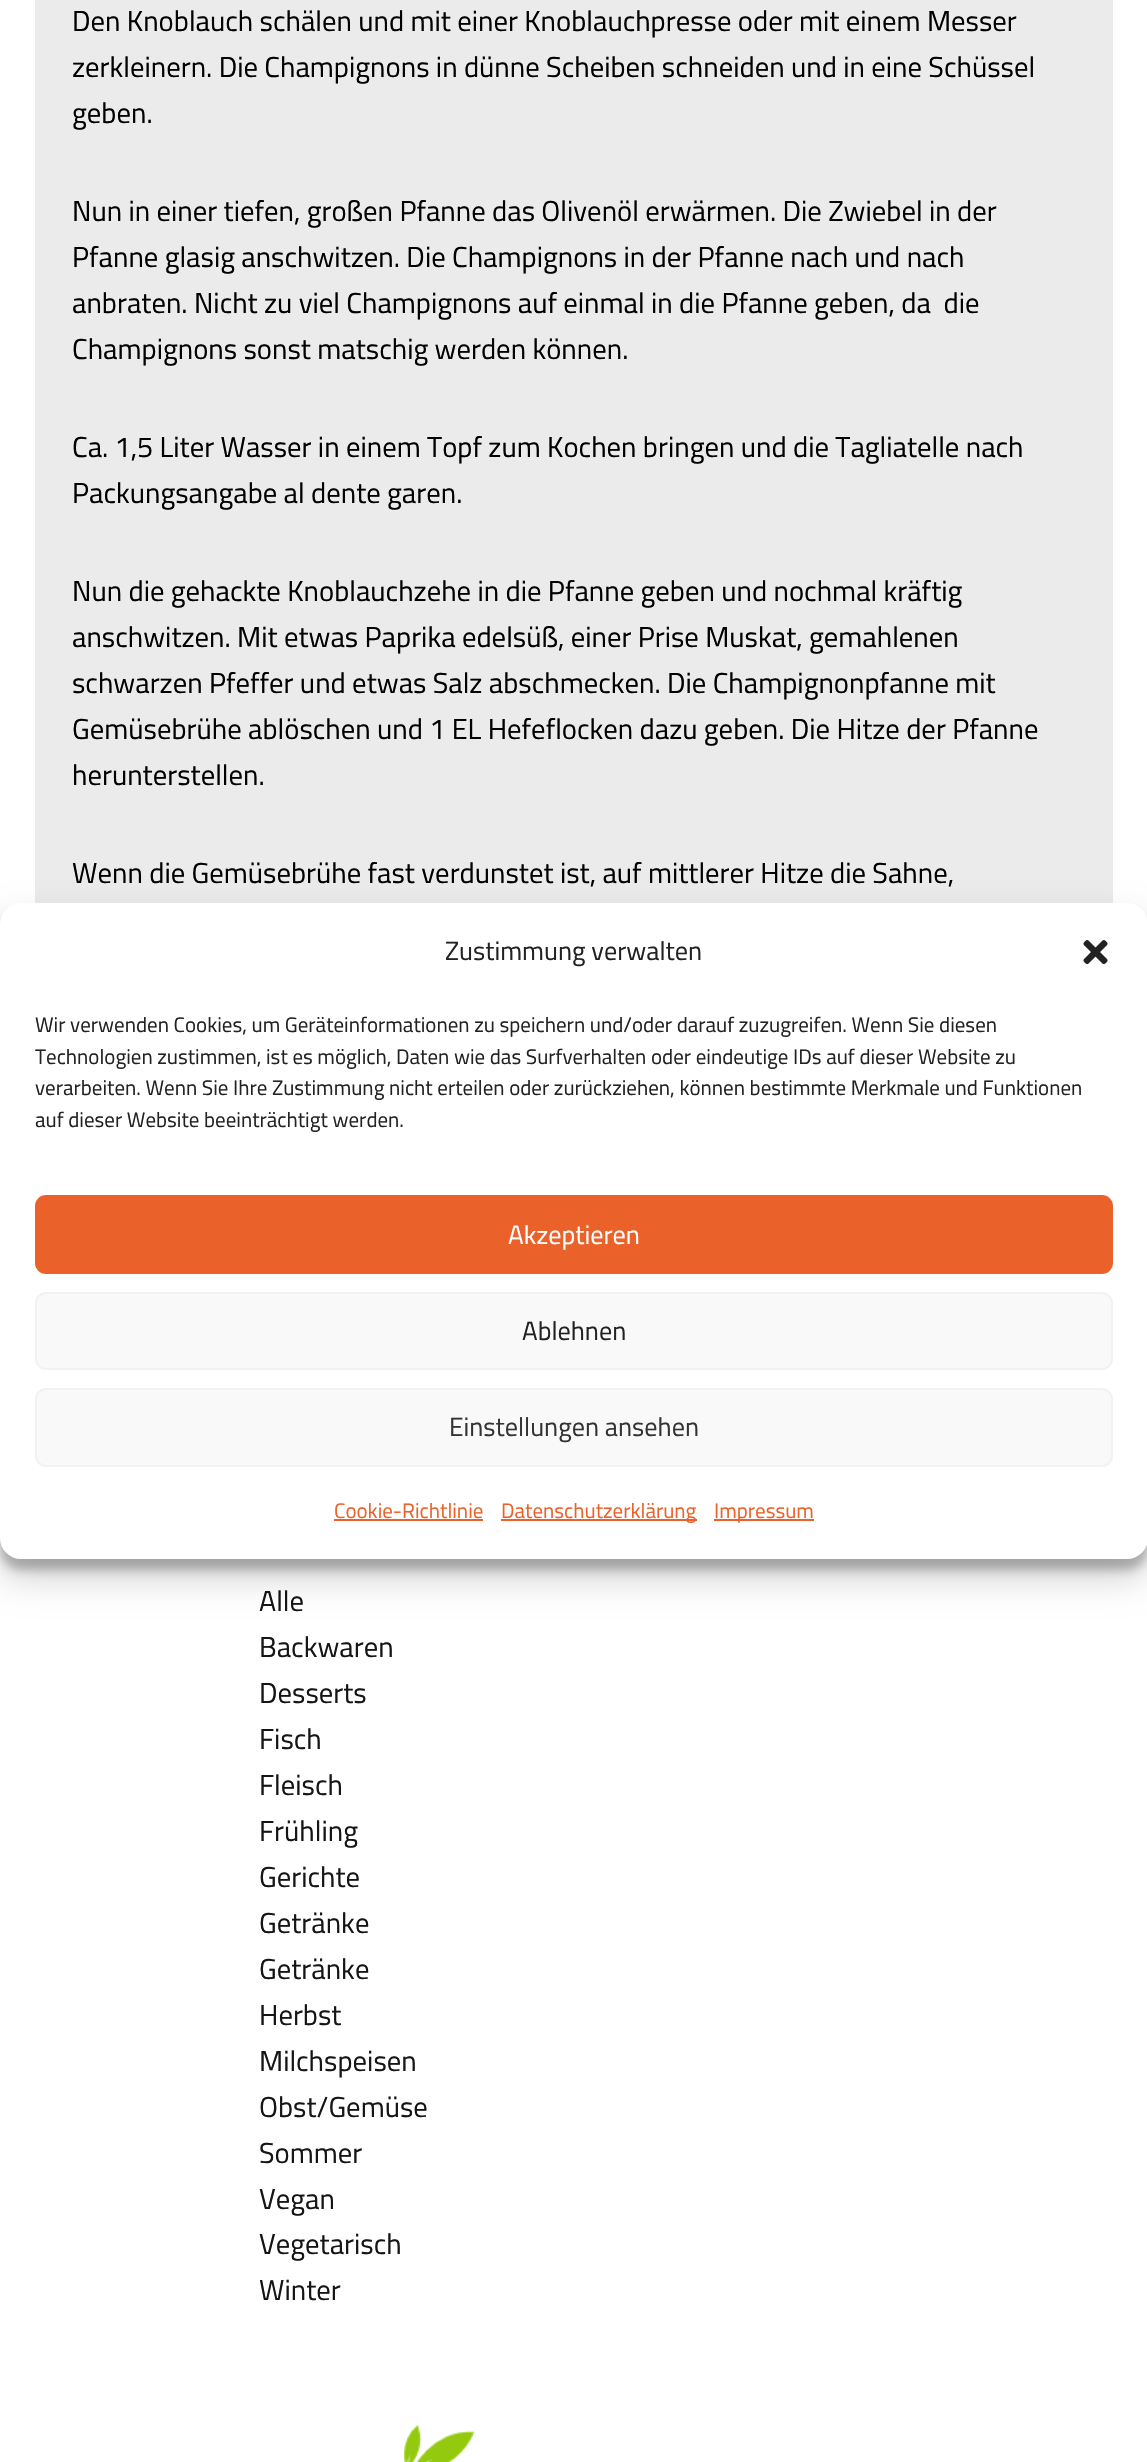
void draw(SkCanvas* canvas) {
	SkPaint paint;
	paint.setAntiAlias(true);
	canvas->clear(0xffffffff);
	paint.setColor(0xffebebeb);
	canvas->drawRect(SkRect::MakeXYWH(35, 0, 1078, 903), paint);
	SkFont f1(fontMgr->matchFamilyStyle("Titillium Web", SkFontStyle::Normal()), 28.75);
	f1.setSubpixel(true);
	paint.setColor(0xff000000);
	canvas->drawString("Den Knoblauch schälen und mit einer Knoblauchpresse oder mit einem Messer", 72, 31, f1, paint);
	canvas->drawString("zerkleinern. Die Champignons in dünne Scheiben schneiden und in eine Schüssel", 72, 77, f1, paint);
	canvas->drawString("geben.", 72, 123, f1, paint);
	canvas->drawString("Nun in einer tiefen, großen Pfanne das Olivenöl erwärmen. Die Zwiebel in der", 72, 221, f1, paint);
	canvas->drawString("Pfanne glasig anschwitzen. Die Champignons in der Pfanne nach und nach", 72, 267, f1, paint);
	canvas->drawString("anbraten. Nicht zu viel Champignons auf einmal in die Pfanne geben, da  die", 72, 313, f1, paint);
	canvas->drawString("Champignons sonst matschig werden können.", 72, 359, f1, paint);
	canvas->drawString("Ca. 1,5 Liter Wasser in einem Topf zum Kochen bringen und die Tagliatelle nach", 72, 457, f1, paint);
	canvas->drawString("Packungsangabe al dente garen.", 72, 503, f1, paint);
	canvas->drawString("Nun die gehackte Knoblauchzehe in die Pfanne geben und nochmal kräftig", 72, 601, f1, paint);
	canvas->drawString("anschwitzen. Mit etwas Paprika edelsüß, einer Prise Muskat, gemahlenen", 72, 647, f1, paint);
	canvas->drawString("schwarzen Pfeffer und etwas Salz abschmecken. Die Champignonpfanne mit", 72, 693, f1, paint);
	canvas->drawString("Gemüsebrühe ablöschen und 1 EL Hefeflocken dazu geben. Die Hitze der Pfanne", 72, 739, f1, paint);
	canvas->drawString("herunterstellen.", 72, 785, f1, paint);
	canvas->drawString("Wenn die Gemüsebrühe fast verdunstet ist, auf mittlerer Hitze die Sahne,", 72, 883, f1, paint);
	paint.setColor(0xff151515);
	canvas->drawString("Alle", 259, 1611, f1, paint);
	canvas->drawString("Backwaren", 259, 1657, f1, paint);
	canvas->drawString("Desserts", 259, 1703, f1, paint);
	canvas->drawString("Fisch", 259, 1749, f1, paint);
	canvas->drawString("Fleisch", 259, 1795, f1, paint);
	canvas->drawString("Frühling", 259, 1841, f1, paint);
	canvas->drawString("Gerichte", 259, 1887, f1, paint);
	canvas->drawString("Getränke", 259, 1933, f1, paint);
	canvas->drawString("Getränke", 259, 1979, f1, paint);
	canvas->drawString("Herbst", 259, 2025, f1, paint);
	canvas->drawString("Milchspeisen", 259, 2071, f1, paint);
	canvas->drawString("Obst/Gemüse", 259, 2117, f1, paint);
	canvas->drawString("Sommer", 259, 2163, f1, paint);
	canvas->drawString("Vegan", 259, 2209, f1, paint);
	canvas->drawString("Vegetarisch", 259, 2254, f1, paint);
	canvas->drawString("Winter", 259, 2300, f1, paint);
	canvas->drawImageRect(SkImages::DeferredFromEncodedData(SkData::MakeFromFileName("img1.png")), SkRect::MakeXYWH(404, 2425, 71, 37), SkSamplingOptions());
	paint.setColor(0x3b000000);
	paint.setMaskFilter(SkMaskFilter::MakeBlur(kNormal_SkBlurStyle, 5));
	canvas->drawRoundRect(SkRect::MakeXYWH(0, 914, 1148, 656), 21, 21, paint);
	paint.setMaskFilter(nullptr);
	paint.setColor(0x30000000);
	paint.setMaskFilter(SkMaskFilter::MakeBlur(kNormal_SkBlurStyle, 17.5));
	canvas->drawRoundRect(SkRect::MakeXYWH(0, 921, 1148, 656), 21, 21, paint);
	paint.setMaskFilter(nullptr);
	paint.setColor(0xffffffff);
	canvas->drawRoundRect(SkRect::MakeXYWH(0, 903, 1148, 656), 21, 21, paint);
	SkFont f2(fontMgr->matchFamilyStyle("Titillium Web", SkFontStyle::Normal()), 26.25);
	f2.setSubpixel(true);
	paint.setColor(0xff222222);
	canvas->drawString("Zustimmung verwalten", 445, 960, f2, paint);
	canvas->drawImageRect(SkImages::DeferredFromEncodedData(SkData::MakeFromFileName("img2.png")), SkRect::MakeXYWH(1083, 940, 25, 25), SkSamplingOptions());
	SkFont f3(fontMgr->matchFamilyStyle("Titillium Web", SkFontStyle::Normal()), 21);
	f3.setSubpixel(true);
	canvas->drawString("Wir verwenden Cookies, um Geräteinformationen zu speichern und/oder darauf zuzugreifen. Wenn Sie diesen", 35, 1032, f3, paint);
	canvas->drawString("Technologien zustimmen, ist es möglich, Daten wie das Surfverhalten oder eindeutige IDs auf dieser Website zu", 35, 1064, f3, paint);
	canvas->drawString("verarbeiten. Wenn Sie Ihre Zustimmung nicht erteilen oder zurückziehen, können bestimmte Merkmale und Funktionen", 35, 1095, f3, paint);
	canvas->drawString("auf dieser Website beeinträchtigt werden.", 35, 1127, f3, paint);
	paint.setColor(0xffeb612a);
	canvas->drawRoundRect(SkRect::MakeXYWH(36, 1196, 1076, 77), 10, 10, paint);
	paint.setStroke(true);
	paint.setStrokeWidth(2);
	canvas->drawRoundRect(SkRect::MakeXYWH(36, 1196, 1076, 77), 10, 10, paint);
	paint.setStroke(false);
	paint.setColor(0xffffffff);
	canvas->drawString("Akzeptieren", 508, 1244, f2, paint);
	paint.setColor(0xfff9f9f9);
	canvas->drawRoundRect(SkRect::MakeXYWH(36, 1293, 1076, 76), 10, 10, paint);
	paint.setStroke(true);
	paint.setColor(0xfff2f2f2);
	canvas->drawRoundRect(SkRect::MakeXYWH(36, 1293, 1076, 76), 10, 10, paint);
	paint.setStroke(false);
	paint.setColor(0xff222222);
	canvas->drawString("Ablehnen", 522, 1340, f2, paint);
	paint.setColor(0xfff9f9f9);
	canvas->drawRoundRect(SkRect::MakeXYWH(36, 1389, 1076, 77), 10, 10, paint);
	paint.setStroke(true);
	paint.setColor(0xfff2f2f2);
	canvas->drawRoundRect(SkRect::MakeXYWH(36, 1389, 1076, 77), 10, 10, paint);
	paint.setStroke(false);
	paint.setColor(0xff333333);
	canvas->drawString("Einstellungen ansehen", 449, 1436, f2, paint);
	paint.setColor(0xffeb612a);
	canvas->drawString("Cookie-Richtlinie", 334, 1518, f3, paint);
	canvas->drawRect(SkRect::MakeXYWH(334, 1519, 149, 2), paint);
	canvas->drawRect(SkRect::MakeXYWH(501, 1519, 196, 2), paint);
	canvas->drawString("Datenschutzerklärung", 501, 1518, f3, paint);
	canvas->drawRect(SkRect::MakeXYWH(714, 1519, 100, 2), paint);
	canvas->drawString("Impressum", 714, 1518, f3, paint);
}
